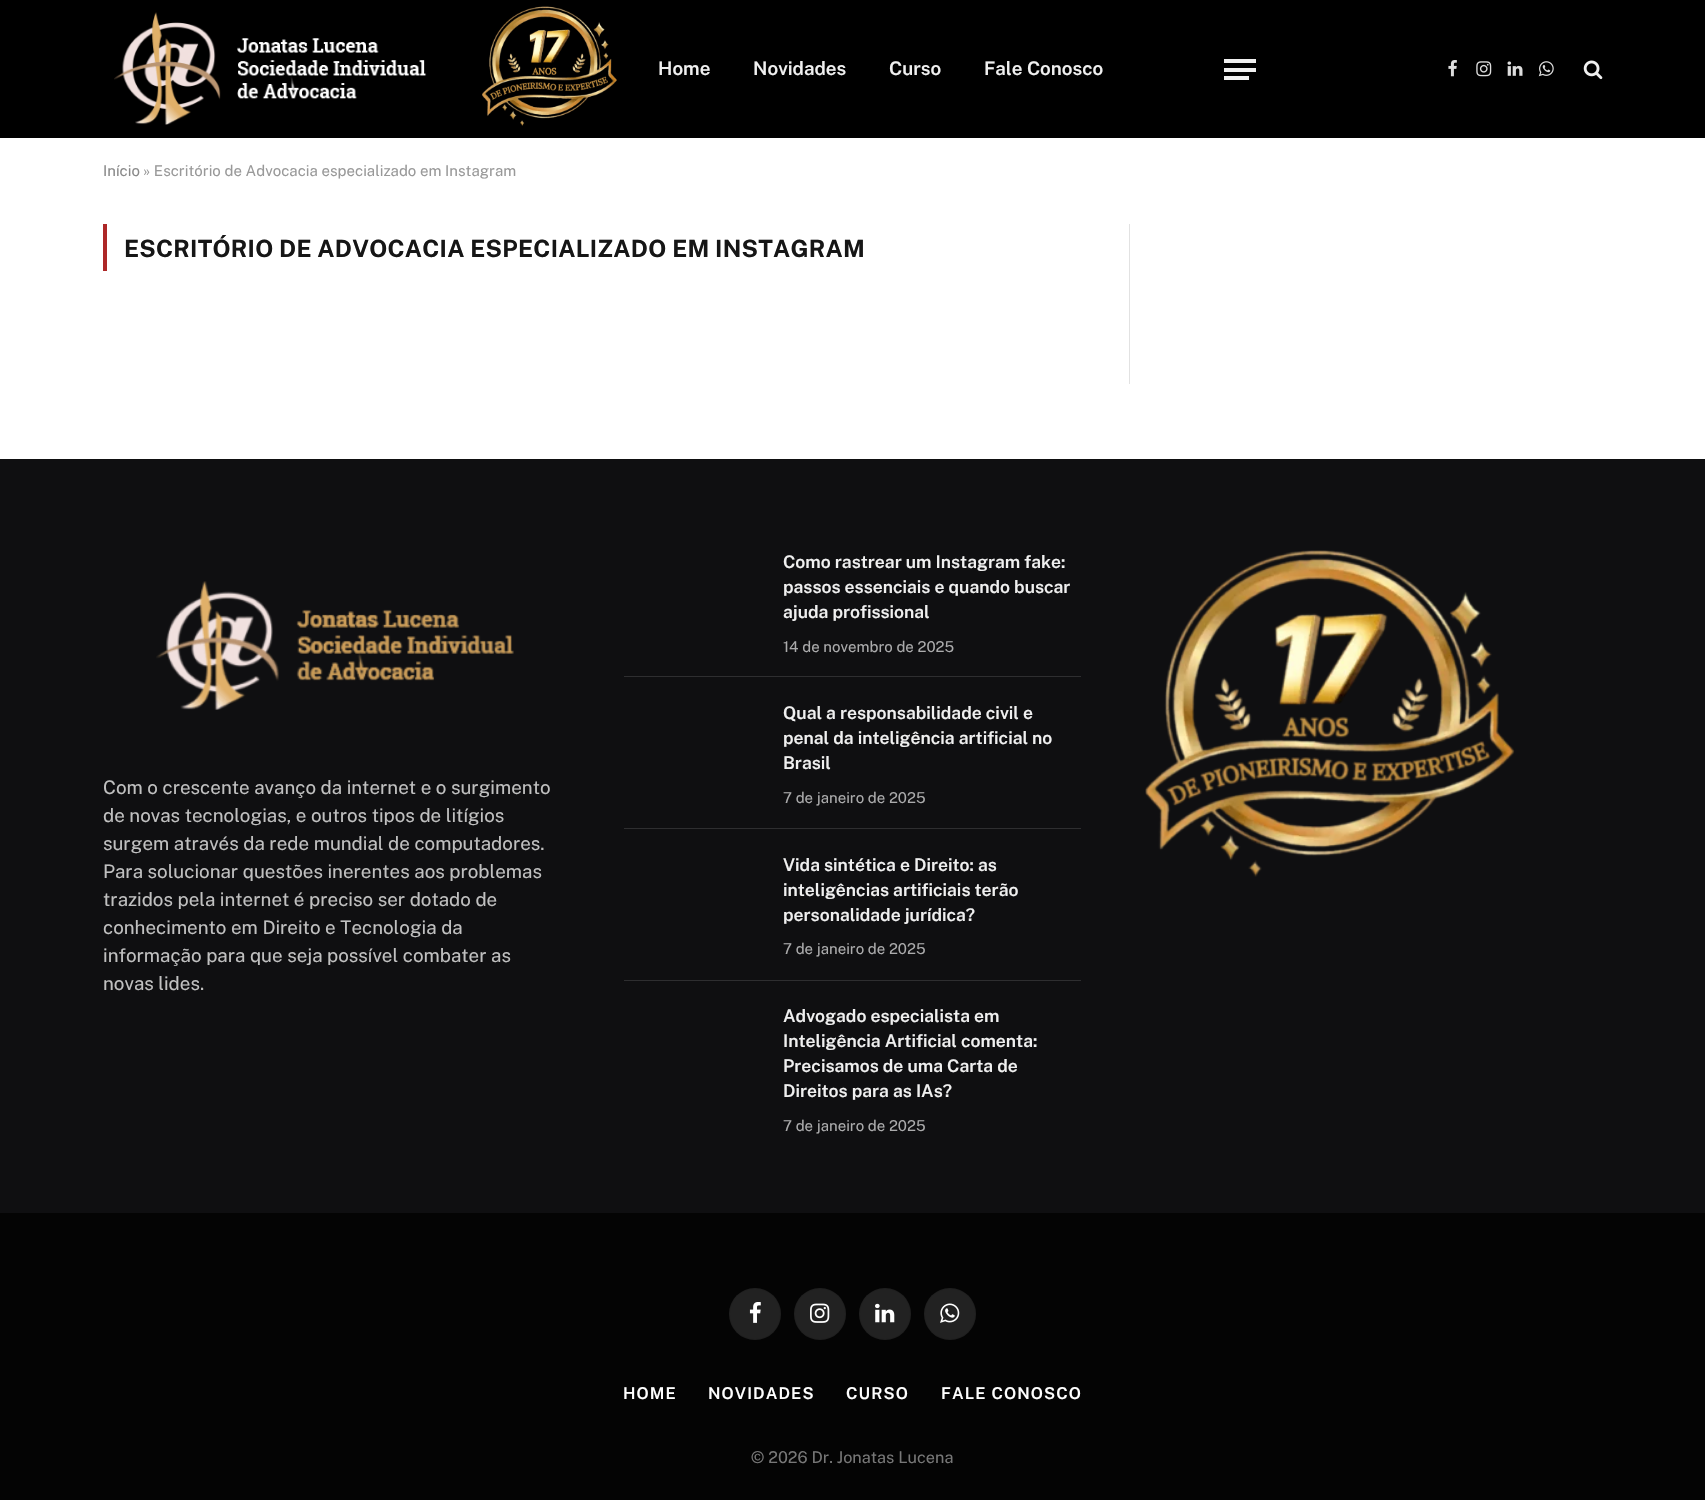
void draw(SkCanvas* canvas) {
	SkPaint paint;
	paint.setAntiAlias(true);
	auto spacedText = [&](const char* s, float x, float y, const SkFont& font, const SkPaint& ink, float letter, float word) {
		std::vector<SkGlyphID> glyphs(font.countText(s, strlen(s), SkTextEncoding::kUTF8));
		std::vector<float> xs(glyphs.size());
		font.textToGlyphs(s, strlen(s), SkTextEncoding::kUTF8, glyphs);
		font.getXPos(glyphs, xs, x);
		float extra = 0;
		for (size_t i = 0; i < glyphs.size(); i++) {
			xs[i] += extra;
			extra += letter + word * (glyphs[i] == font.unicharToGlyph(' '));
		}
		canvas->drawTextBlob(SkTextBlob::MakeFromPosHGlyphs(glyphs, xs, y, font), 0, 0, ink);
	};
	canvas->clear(0xffffffff);
	paint.setColor(0xff000000);
	canvas->drawRect(SkRect::MakeXYWH(0, 0, 1705, 138), paint);
	canvas->drawImageRect(SkImages::DeferredFromEncodedData(SkData::MakeFromFileName("img1.png")), SkRect::MakeXYWH(114, 12, 313, 113), SkSamplingOptions());
	canvas->drawImageRect(SkImages::DeferredFromEncodedData(SkData::MakeFromFileName("img2.png")), SkRect::MakeXYWH(482, 6, 135, 120), SkSamplingOptions());
	SkFont f1(fontMgr->matchFamilyStyle("Public Sans", SkFontStyle(600, SkFontStyle::kNormal_Width, SkFontStyle::kUpright_Slant)), 18.75);
	f1.setSubpixel(true);
	paint.setColor(0xfff0f0f0);
	canvas->drawString("Home", 658, 75, f1, paint);
	canvas->drawString("Novidades", 753, 75, f1, paint);
	canvas->drawString("Curso", 889, 75, f1, paint);
	canvas->drawString("Fale Conosco", 984, 75, f1, paint);
	canvas->drawRect(SkRect::MakeXYWH(1224, 76, 25, 4), paint);
	canvas->drawRect(SkRect::MakeXYWH(1224, 59, 32, 4), paint);
	canvas->drawRect(SkRect::MakeXYWH(1224, 68, 32, 4), paint);
	canvas->drawImageRect(SkImages::DeferredFromEncodedData(SkData::MakeFromFileName("img3.png")), SkRect::MakeXYWH(1448, 60, 9, 17), SkSamplingOptions());
	canvas->drawImageRect(SkImages::DeferredFromEncodedData(SkData::MakeFromFileName("img4.png")), SkRect::MakeXYWH(1476, 61, 16, 16), SkSamplingOptions());
	canvas->drawImageRect(SkImages::DeferredFromEncodedData(SkData::MakeFromFileName("img5.png")), SkRect::MakeXYWH(1507, 61, 16, 15), SkSamplingOptions());
	canvas->drawImageRect(SkImages::DeferredFromEncodedData(SkData::MakeFromFileName("img6.png")), SkRect::MakeXYWH(1538, 61, 16, 16), SkSamplingOptions());
	canvas->drawImageRect(SkImages::DeferredFromEncodedData(SkData::MakeFromFileName("img7.png")), SkRect::MakeXYWH(1583, 60, 20, 20), SkSamplingOptions());
	SkFont f2(fontMgr->matchFamilyStyle("Public Sans", SkFontStyle::Normal()), 15);
	f2.setSubpixel(true);
	paint.setColor(0xff8a8a8a);
	canvas->drawString("Início", 103, 176, f2, paint);
	paint.setColor(0xff999999);
	canvas->drawString("» Escritório de Advocacia especializado em Instagram", 143, 176, f2, paint);
	paint.setColor(0xffad2727);
	canvas->drawRect(SkRect::MakeXYWH(103, 224, 4, 47), paint);
	SkFont f3(fontMgr->matchFamilyStyle("Public Sans", SkFontStyle::Bold()), 23.75);
	f3.setSubpixel(true);
	paint.setColor(0xff161616);
	spacedText("ESCRITÓRIO DE ADVOCACIA ESPECIALIZADO EM INSTAGRAM", 124, 257, f3, paint, 0.25, 0);
	paint.setColor(0xffe2e2e2);
	canvas->drawRect(SkRect::MakeXYWH(1129, 224, 1, 160), paint);
	paint.setColor(0xff0f0f11);
	canvas->drawRect(SkRect::MakeXYWH(0, 459, 1705, 754), paint);
	canvas->drawImageRect(SkImages::DeferredFromEncodedData(SkData::MakeFromFileName("img8.png")), SkRect::MakeXYWH(156, 581, 358, 129), SkSamplingOptions());
	SkFont f4(fontMgr->matchFamilyStyle("Public Sans", SkFontStyle::Normal()), 18.75);
	f4.setSubpixel(true);
	paint.setColor(0xffc0c0c0);
	canvas->drawString("Com o crescente avanço da internet e o surgimento", 103, 794, f4, paint);
	canvas->drawString("de novas tecnologias, e outros tipos de litígios", 103, 822, f4, paint);
	canvas->drawString("surgem através da rede mundial de computadores.", 103, 850, f4, paint);
	canvas->drawString("Para solucionar questões inerentes aos problemas", 103, 878, f4, paint);
	canvas->drawString("trazidos pela internet é preciso ser dotado de", 103, 906, f4, paint);
	canvas->drawString("conhecimento em Direito e Tecnologia da", 103, 934, f4, paint);
	canvas->drawString("informação para que seja possível combater as", 103, 962, f4, paint);
	canvas->drawString("novas lides.", 103, 990, f4, paint);
	SkFont f5(fontMgr->matchFamilyStyle("Public Sans", SkFontStyle(600, SkFontStyle::kNormal_Width, SkFontStyle::kUpright_Slant)), 17.5);
	f5.setSubpixel(true);
	paint.setColor(0xfff0f0f0);
	canvas->drawString("Como rastrear um Instagram fake:", 783, 568, f5, paint);
	canvas->drawString("passos essenciais e quando buscar", 783, 593, f5, paint);
	canvas->drawString("ajuda profissional", 783, 618, f5, paint);
	paint.setColor(0xffababac);
	canvas->drawString("14 de novembro de 2025", 783, 652, f2, paint);
	paint.setColor(0xff2e2e30);
	canvas->drawRect(SkRect::MakeXYWH(624, 676, 457, 1), paint);
	paint.setColor(0xfff0f0f0);
	canvas->drawString("Qual a responsabilidade civil e", 783, 719, f5, paint);
	canvas->drawString("penal da inteligência artificial no", 783, 744, f5, paint);
	canvas->drawString("Brasil", 783, 769, f5, paint);
	paint.setColor(0xffababac);
	canvas->drawString("7 de janeiro de 2025", 783, 803, f2, paint);
	paint.setColor(0xff2e2e30);
	canvas->drawRect(SkRect::MakeXYWH(624, 828, 457, 1), paint);
	paint.setColor(0xfff0f0f0);
	canvas->drawString("Vida sintética e Direito: as", 783, 871, f5, paint);
	canvas->drawString("inteligências artificiais terão", 783, 896, f5, paint);
	canvas->drawString("personalidade jurídica?", 783, 921, f5, paint);
	paint.setColor(0xffababac);
	canvas->drawString("7 de janeiro de 2025", 783, 954, f2, paint);
	paint.setColor(0xff2e2e30);
	canvas->drawRect(SkRect::MakeXYWH(624, 980, 457, 1), paint);
	paint.setColor(0xfff0f0f0);
	canvas->drawString("Advogado especialista em", 783, 1022, f5, paint);
	canvas->drawString("Inteligência Artificial comenta:", 783, 1047, f5, paint);
	canvas->drawString("Precisamos de uma Carta de", 783, 1072, f5, paint);
	canvas->drawString("Direitos para as IAs?", 783, 1097, f5, paint);
	paint.setColor(0xffababac);
	canvas->drawString("7 de janeiro de 2025", 783, 1131, f2, paint);
	canvas->drawImageRect(SkImages::DeferredFromEncodedData(SkData::MakeFromFileName("img9.png")), SkRect::MakeXYWH(1145, 550, 370, 327), SkSamplingOptions());
	paint.setColor(0xff040404);
	canvas->drawRect(SkRect::MakeXYWH(0, 1213, 1705, 287), paint);
	paint.setColor(0xff222222);
	canvas->drawCircle(755, 1314, 26, paint);
	paint.setStroke(true);
	paint.setStrokeWidth(1);
	paint.setColor(0x17000000);
	canvas->drawCircle(755, 1314, 25.5, paint);
	canvas->drawImageRect(SkImages::DeferredFromEncodedData(SkData::MakeFromFileName("img10.png")), SkRect::MakeXYWH(749, 1302, 12, 21), SkSamplingOptions());
	paint.setStroke(false);
	paint.setColor(0xff222222);
	canvas->drawCircle(820, 1314, 26, paint);
	paint.setStroke(true);
	paint.setColor(0x17000000);
	canvas->drawCircle(820, 1314, 25.5, paint);
	canvas->drawImageRect(SkImages::DeferredFromEncodedData(SkData::MakeFromFileName("img11.png")), SkRect::MakeXYWH(810, 1303, 20, 20), SkSamplingOptions());
	paint.setStroke(false);
	paint.setColor(0xff222222);
	canvas->drawCircle(885, 1314, 26, paint);
	paint.setStroke(true);
	paint.setColor(0x17000000);
	canvas->drawCircle(885, 1314, 25.5, paint);
	canvas->drawImageRect(SkImages::DeferredFromEncodedData(SkData::MakeFromFileName("img12.png")), SkRect::MakeXYWH(875, 1303, 20, 20), SkSamplingOptions());
	paint.setStroke(false);
	paint.setColor(0xff222222);
	canvas->drawCircle(950, 1314, 26, paint);
	paint.setStroke(true);
	paint.setColor(0x17000000);
	canvas->drawCircle(950, 1314, 25.5, paint);
	canvas->drawImageRect(SkImages::DeferredFromEncodedData(SkData::MakeFromFileName("img13.png")), SkRect::MakeXYWH(940, 1303, 20, 20), SkSamplingOptions());
	SkFont f6(fontMgr->matchFamilyStyle("Public Sans", SkFontStyle(600, SkFontStyle::kNormal_Width, SkFontStyle::kUpright_Slant)), 16.25);
	f6.setSubpixel(true);
	paint.setStroke(false);
	paint.setColor(0xffffffff);
	spacedText("HOME", 623, 1399, f6, paint, 1.1, 0);
	spacedText("NOVIDADES", 708, 1399, f6, paint, 1.1, 0);
	spacedText("CURSO", 846, 1399, f6, paint, 1.1, 0);
	spacedText("FALE CONOSCO", 941, 1399, f6, paint, 1.1, 0);
	SkFont f7(fontMgr->matchFamilyStyle("Public Sans", SkFontStyle::Normal()), 16.25);
	f7.setSubpixel(true);
	paint.setColor(0xff777777);
	canvas->drawString("© 2026 Dr. Jonatas Lucena", 751, 1463, f7, paint);
}
